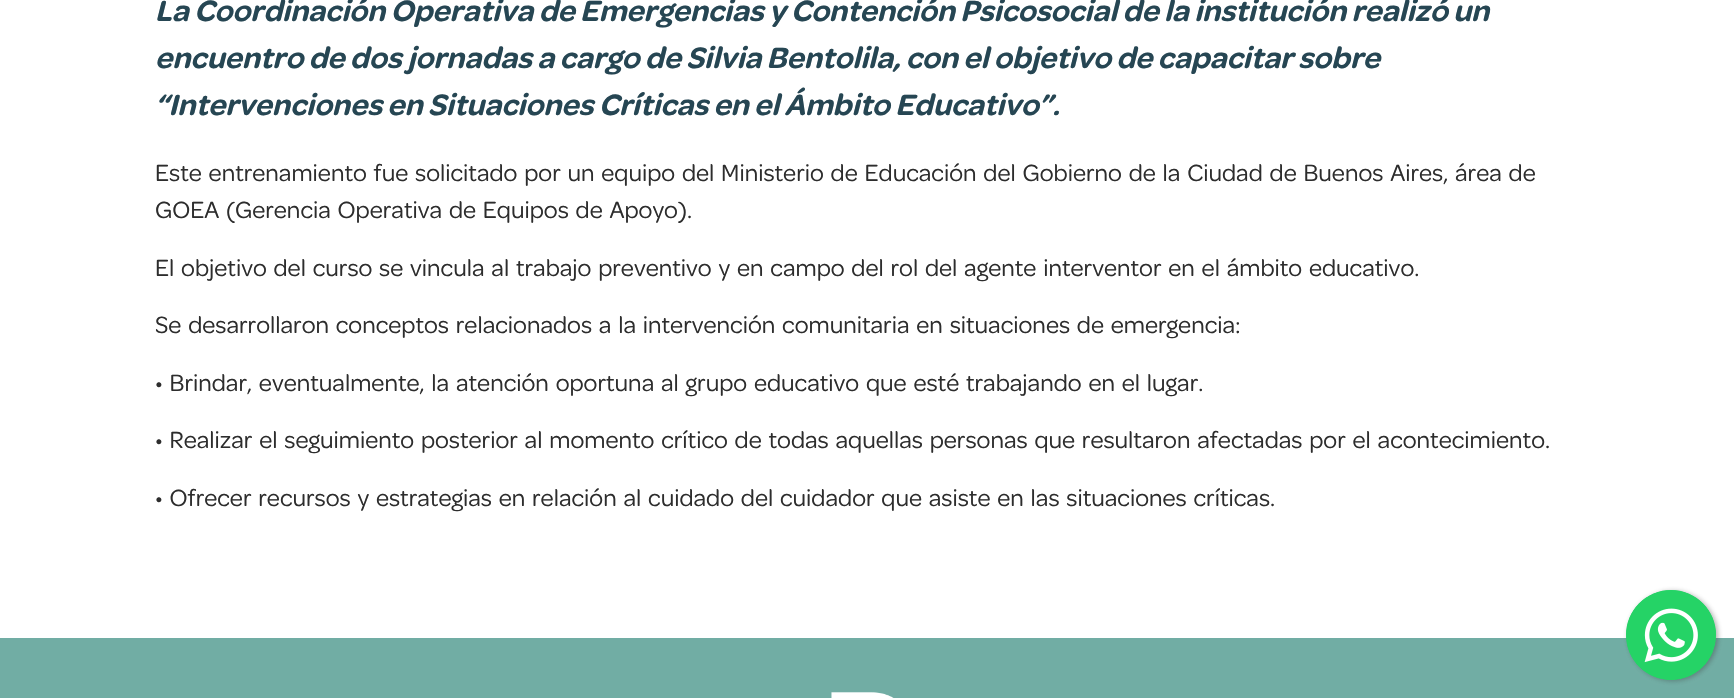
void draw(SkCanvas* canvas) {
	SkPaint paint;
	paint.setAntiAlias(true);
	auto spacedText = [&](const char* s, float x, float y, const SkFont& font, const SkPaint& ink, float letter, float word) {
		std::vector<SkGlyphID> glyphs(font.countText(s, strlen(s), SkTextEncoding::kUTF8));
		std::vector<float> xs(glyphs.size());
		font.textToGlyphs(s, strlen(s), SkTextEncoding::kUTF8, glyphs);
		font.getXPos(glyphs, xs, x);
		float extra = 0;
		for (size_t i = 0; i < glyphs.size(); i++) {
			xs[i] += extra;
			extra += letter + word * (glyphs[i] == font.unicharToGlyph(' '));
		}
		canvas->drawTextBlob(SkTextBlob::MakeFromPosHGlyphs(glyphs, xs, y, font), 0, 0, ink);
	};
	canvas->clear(0xffffffff);
	SkFont f1(fontMgr->matchFamilyStyle("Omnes", SkFontStyle(600, SkFontStyle::kNormal_Width, SkFontStyle::kItalic_Slant)), 31.25);
	f1.setSubpixel(true);
	paint.setColor(0xff264653);
	canvas->drawString("La Coordinación Operativa de Emergencias y Contención Psicosocial de la institución realizó un", 155, 21, f1, paint);
	canvas->drawString("encuentro de dos jornadas a cargo de Silvia Bentolila, con el objetivo de capacitar sobre", 155, 68, f1, paint);
	canvas->drawString("“Intervenciones en Situaciones Críticas en el Ámbito Educativo”.", 155, 115, f1, paint);
	SkFont f2(fontMgr->matchFamilyStyle("Omnes", SkFontStyle::Normal()), 25);
	f2.setSubpixel(true);
	paint.setColor(0xff2d2d2d);
	spacedText("Este entrenamiento fue solicitado por un equipo del Ministerio de Educación del Gobierno de la Ciudad de Buenos Aires, área de", 155, 181, f2, paint, 0, 2.5);
	spacedText("GOEA (Gerencia Operativa de Equipos de Apoyo).", 155, 218, f2, paint, 0, 2.5);
	spacedText("El objetivo del curso se vincula al trabajo preventivo y en campo del rol del agente interventor en el ámbito educativo.", 155, 276, f2, paint, 0, 2.5);
	spacedText("Se desarrollaron conceptos relacionados a la intervención comunitaria en situaciones de emergencia:", 155, 333, f2, paint, 0, 2.5);
	spacedText("• Brindar, eventualmente, la atención oportuna al grupo educativo que esté trabajando en el lugar.", 155, 391, f2, paint, 0, 2.5);
	spacedText("• Realizar el seguimiento posterior al momento crítico de todas aquellas personas que resultaron afectadas por el acontecimiento.", 155, 448, f2, paint, 0, 2.5);
	spacedText("• Ofrecer recursos y estrategias en relación al cuidado del cuidador que asiste en las situaciones críticas.", 155, 506, f2, paint, 0, 2.5);
	paint.setColor(0xff71ada4);
	canvas->drawRect(SkRect::MakeXYWH(0, 638, 1734, 60), paint);
	paint.setColor(0x663c3c3c);
	paint.setMaskFilter(SkMaskFilter::MakeBlur(kNormal_SkBlurStyle, 2.5));
	canvas->drawRoundRect(SkRect::MakeXYWH(1628, 591, 90, 90), 45, 45, paint);
	paint.setMaskFilter(nullptr);
	paint.setColor(0xff25d366);
	canvas->drawCircle(1671, 635, 45, paint);
	canvas->drawImageRect(SkImages::DeferredFromEncodedData(SkData::MakeFromFileName("img1.png")), SkRect::MakeXYWH(1626, 590, 90, 90), SkSamplingOptions());
	canvas->drawImageRect(SkImages::DeferredFromEncodedData(SkData::MakeFromFileName("img2.png")), SkRect::MakeXYWH(831, 692, 63, 6), SkSamplingOptions());
}
